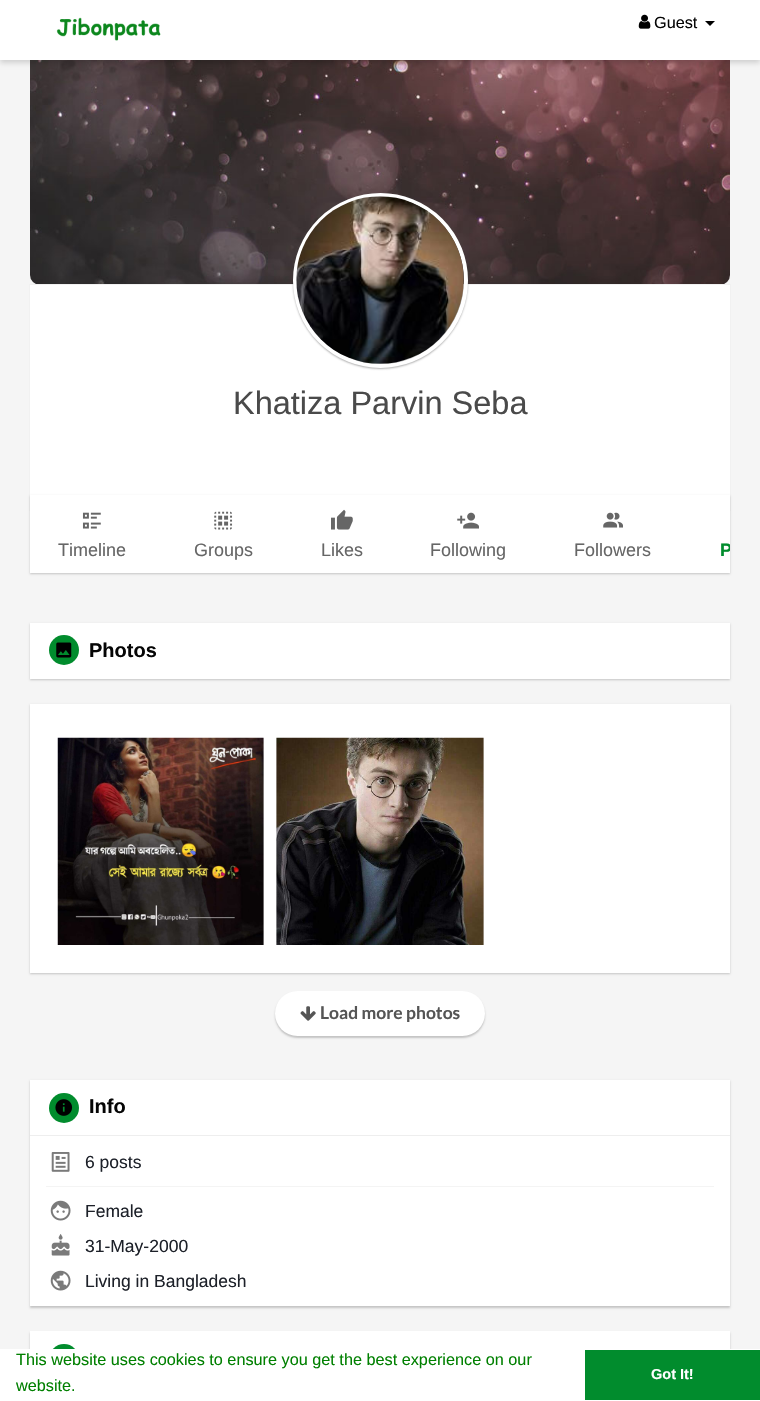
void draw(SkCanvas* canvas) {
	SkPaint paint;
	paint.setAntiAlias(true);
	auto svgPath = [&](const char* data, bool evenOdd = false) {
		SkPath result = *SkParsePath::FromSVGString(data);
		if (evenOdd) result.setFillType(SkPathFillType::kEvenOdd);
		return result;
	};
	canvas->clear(0xfff5f5f5);
	paint.setColor(0xffffffff);
	canvas->drawPath(svgPath("M30 56H730V275C730 280.5 725.5 285 720 285H40C34.5 285 30 280.5 30 275Z"), paint);
	canvas->drawImageRect(SkImages::DeferredFromEncodedData(SkData::MakeFromFileName("img3.png")), SkRect::MakeXYWH(30, 60, 700, 224), SkSamplingOptions());
	paint.setColor(0x26000000);
	paint.setMaskFilter(SkMaskFilter::MakeBlur(kNormal_SkBlurStyle, 2.5));
	canvas->drawRect(SkRect::MakeXYWH(0, 3, 760, 60), paint);
	paint.setMaskFilter(nullptr);
	paint.setColor(0xffffffff);
	canvas->drawRect(SkRect::MakeXYWH(0, 0, 760, 60), paint);
	canvas->drawImageRect(SkImages::DeferredFromEncodedData(SkData::MakeFromFileName("img1.png")), SkRect::MakeXYWH(56, 17, 105, 24), SkSamplingOptions());
	canvas->drawImageRect(SkImages::DeferredFromEncodedData(SkData::MakeFromFileName("img2.png")), SkRect::MakeXYWH(638, 14, 13, 15), SkSamplingOptions());
	SkFont f1(fontMgr->matchFamilyStyle("Liberation Sans", SkFontStyle::Normal()), 16.25);
	f1.setSubpixel(true);
	paint.setColor(0xff050505);
	canvas->drawString("Guest", 654, 28, f1, paint);
	paint.setColor(0xff000000);
	canvas->drawPath(svgPath("M705 21H715L710 26Z"), paint);
	paint.setStroke(true);
	paint.setStrokeWidth(1);
	paint.setColor(0xfff1f1f1);
	canvas->drawRect(SkRect::MakeXYWH(29.5, 284.5, 701, 226), paint);
	paint.setStroke(false);
	paint.setColor(0xffffffff);
	canvas->drawRect(SkRect::MakeXYWH(30, 285, 700, 210), paint);
	paint.setColor(0x6b444444);
	paint.setMaskFilter(SkMaskFilter::MakeBlur(kNormal_SkBlurStyle, 1));
	canvas->drawRoundRect(SkRect::MakeXYWH(293, 194, 175, 175), 87.5, 87.5, paint);
	paint.setMaskFilter(nullptr);
	paint.setStroke(true);
	paint.setStrokeWidth(4);
	paint.setColor(0xffffffff);
	canvas->drawCircle(380.5, 280.5, 85.5, paint);
	canvas->drawImageRect(SkImages::DeferredFromEncodedData(SkData::MakeFromFileName("img4.png")), SkRect::MakeXYWH(296, 196, 168, 168), SkSamplingOptions());
	SkFont f2(fontMgr->matchFamilyStyle("Liberation Sans", SkFontStyle::Normal()), 32.5);
	f2.setSubpixel(true);
	paint.setStroke(false);
	paint.setColor(0xff4a4a4a);
	canvas->drawString("Khatiza Parvin Seba", 233, 414, f2, paint);
	paint.setColor(0x33000000);
	paint.setMaskFilter(SkMaskFilter::MakeBlur(kNormal_SkBlurStyle, 1));
	canvas->drawRect(SkRect::MakeXYWH(30, 496, 700, 78), paint);
	paint.setMaskFilter(nullptr);
	paint.setColor(0xffffffff);
	canvas->drawRect(SkRect::MakeXYWH(30, 495, 700, 78), paint);
	canvas->drawImageRect(SkImages::DeferredFromEncodedData(SkData::MakeFromFileName("img5.png")), SkRect::MakeXYWH(82, 512, 19, 17), SkSamplingOptions());
	SkFont f3(fontMgr->matchFamilyStyle("Liberation Sans", SkFontStyle::Normal()), 18);
	f3.setSubpixel(true);
	paint.setColor(0xff666666);
	canvas->drawString("Timeline", 58, 556, f3, paint);
	canvas->drawImageRect(SkImages::DeferredFromEncodedData(SkData::MakeFromFileName("img6.png")), SkRect::MakeXYWH(214, 511, 19, 19), SkSamplingOptions());
	canvas->drawString("Groups", 194, 556, f3, paint);
	canvas->drawImageRect(SkImages::DeferredFromEncodedData(SkData::MakeFromFileName("img7.png")), SkRect::MakeXYWH(331, 509, 22, 21), SkSamplingOptions());
	canvas->drawString("Likes", 321, 556, f3, paint);
	canvas->drawImageRect(SkImages::DeferredFromEncodedData(SkData::MakeFromFileName("img8.png")), SkRect::MakeXYWH(457, 512, 22, 17), SkSamplingOptions());
	canvas->drawString("Following", 430, 556, f3, paint);
	canvas->drawImageRect(SkImages::DeferredFromEncodedData(SkData::MakeFromFileName("img9.png")), SkRect::MakeXYWH(603, 512, 20, 16), SkSamplingOptions());
	canvas->drawString("Followers", 574, 556, f3, paint);
	canvas->save();
	canvas->clipRect(SkRect::MakeXYWH(30, 495, 700, 96));
	SkFont f4(fontMgr->matchFamilyStyle("Liberation Sans", SkFontStyle::Bold()), 18);
	f4.setSubpixel(true);
	paint.setColor(0xff018c2d);
	canvas->drawString("P", 720, 556, f4, paint);
	canvas->restore();
	paint.setColor(0x33000000);
	paint.setMaskFilter(SkMaskFilter::MakeBlur(kNormal_SkBlurStyle, 1));
	canvas->drawRect(SkRect::MakeXYWH(30, 624, 700, 56), paint);
	paint.setMaskFilter(nullptr);
	paint.setColor(0xffffffff);
	canvas->drawRect(SkRect::MakeXYWH(30, 623, 700, 56), paint);
	paint.setColor(0xff018c2d);
	canvas->drawCircle(64, 650, 15, paint);
	canvas->drawImageRect(SkImages::DeferredFromEncodedData(SkData::MakeFromFileName("img10.png")), SkRect::MakeXYWH(56, 642, 16, 16), SkSamplingOptions());
	SkFont f5(fontMgr->matchFamilyStyle("Liberation Sans", SkFontStyle::Bold()), 20);
	f5.setSubpixel(true);
	paint.setColor(0xff050505);
	canvas->drawString("Photos", 89, 657, f5, paint);
	paint.setColor(0x33000000);
	paint.setMaskFilter(SkMaskFilter::MakeBlur(kNormal_SkBlurStyle, 1));
	canvas->drawRect(SkRect::MakeXYWH(30, 705, 700, 269), paint);
	paint.setMaskFilter(nullptr);
	paint.setColor(0xffffffff);
	canvas->drawRect(SkRect::MakeXYWH(30, 704, 700, 269), paint);
	paint.setColor(0xffeeeeee);
	canvas->drawRect(SkRect::MakeXYWH(263, 738, 1, 207), paint);
	canvas->drawImageRect(SkImages::DeferredFromEncodedData(SkData::MakeFromFileName("img11.png")), SkRect::MakeXYWH(57, 737, 207, 208), SkSamplingOptions());
	canvas->drawRect(SkRect::MakeXYWH(276, 738, 208, 207), paint);
	canvas->drawImageRect(SkImages::DeferredFromEncodedData(SkData::MakeFromFileName("img12.png")), SkRect::MakeXYWH(276, 737, 208, 208), SkSamplingOptions());
	paint.setColor(0x33000000);
	paint.setMaskFilter(SkMaskFilter::MakeBlur(kNormal_SkBlurStyle, 1));
	canvas->drawRoundRect(SkRect::MakeXYWH(275, 993, 210, 45), 22.5, 22.5, paint);
	paint.setMaskFilter(nullptr);
	paint.setColor(0xffffffff);
	canvas->drawRoundRect(SkRect::MakeXYWH(275, 991, 210, 45), 22.5, 22.5, paint);
	canvas->drawImageRect(SkImages::DeferredFromEncodedData(SkData::MakeFromFileName("img13.png")), SkRect::MakeXYWH(300, 1006, 16, 15), SkSamplingOptions());
	SkFont f6(fontMgr->matchFamilyStyle("Lato", SkFontStyle::Bold()), 17.5);
	f6.setSubpixel(true);
	paint.setColor(0xff555555);
	canvas->drawString("Load more photos", 320, 1019, f6, paint);
	paint.setColor(0x33000000);
	paint.setMaskFilter(SkMaskFilter::MakeBlur(kNormal_SkBlurStyle, 1));
	canvas->drawRect(SkRect::MakeXYWH(30, 1081, 700, 227), paint);
	paint.setMaskFilter(nullptr);
	paint.setColor(0xffffffff);
	canvas->drawRect(SkRect::MakeXYWH(30, 1080, 700, 226), paint);
	paint.setColor(0xffeeeeee);
	canvas->drawRect(SkRect::MakeXYWH(30, 1135, 700, 1), paint);
	paint.setColor(0xff018c2d);
	canvas->drawCircle(64, 1108, 15, paint);
	canvas->drawImageRect(SkImages::DeferredFromEncodedData(SkData::MakeFromFileName("img14.png")), SkRect::MakeXYWH(55, 1099, 18, 17), SkSamplingOptions());
	paint.setColor(0xff050505);
	canvas->drawString("Info", 89, 1113, f5, paint);
	canvas->drawImageRect(SkImages::DeferredFromEncodedData(SkData::MakeFromFileName("img15.png")), SkRect::MakeXYWH(51, 1152, 19, 20), SkSamplingOptions());
	SkFont f7(fontMgr->matchFamilyStyle("Liberation Sans", SkFontStyle::Normal()), 17.5);
	f7.setSubpixel(true);
	paint.setColor(0xff1d2129);
	canvas->drawString("6 posts", 85, 1168, f7, paint);
	paint.setColor(0xfff4f4f4);
	canvas->drawRect(SkRect::MakeXYWH(46, 1186, 668, 1), paint);
	canvas->drawImageRect(SkImages::DeferredFromEncodedData(SkData::MakeFromFileName("img16.png")), SkRect::MakeXYWH(50, 1200, 21, 21), SkSamplingOptions());
	paint.setColor(0xff1d2129);
	canvas->drawString("Female", 85, 1217, f7, paint);
	canvas->drawImageRect(SkImages::DeferredFromEncodedData(SkData::MakeFromFileName("img17.png")), SkRect::MakeXYWH(51, 1234, 19, 22), SkSamplingOptions());
	canvas->drawString("31-May-2000", 85, 1252, f7, paint);
	canvas->drawImageRect(SkImages::DeferredFromEncodedData(SkData::MakeFromFileName("img18.png")), SkRect::MakeXYWH(50, 1270, 21, 21), SkSamplingOptions());
	canvas->drawString("Living in Bangladesh", 85, 1287, f7, paint);
	paint.setColor(0x33000000);
	paint.setMaskFilter(SkMaskFilter::MakeBlur(kNormal_SkBlurStyle, 1));
	canvas->drawRect(SkRect::MakeXYWH(30, 1333, 700, 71), paint);
	paint.setMaskFilter(nullptr);
	paint.setColor(0xffffffff);
	canvas->drawRect(SkRect::MakeXYWH(30, 1331, 700, 18), paint);
	paint.setColor(0xff018c2d);
	canvas->drawCircle(64, 1359, 15, paint);
	paint.setColor(0xffffffff);
	canvas->drawRect(SkRect::MakeXYWH(0, 1349, 760, 52), paint);
	paint.setColor(0xff008000);
	canvas->drawString("This website uses cookies to ensure you get the best experience on our", 16, 1365, f1, paint);
	canvas->drawString("website.", 16, 1391, f1, paint);
	paint.setColor(0xff018c2d);
	canvas->drawRect(SkRect::MakeXYWH(585, 1350, 175, 50), paint);
	SkFont f8(fontMgr->matchFamilyStyle("Liberation Sans", SkFontStyle::Bold()), 14.5);
	f8.setSubpixel(true);
	paint.setColor(0xffffffff);
	canvas->drawString("Got It!", 651, 1379, f8, paint);
}
